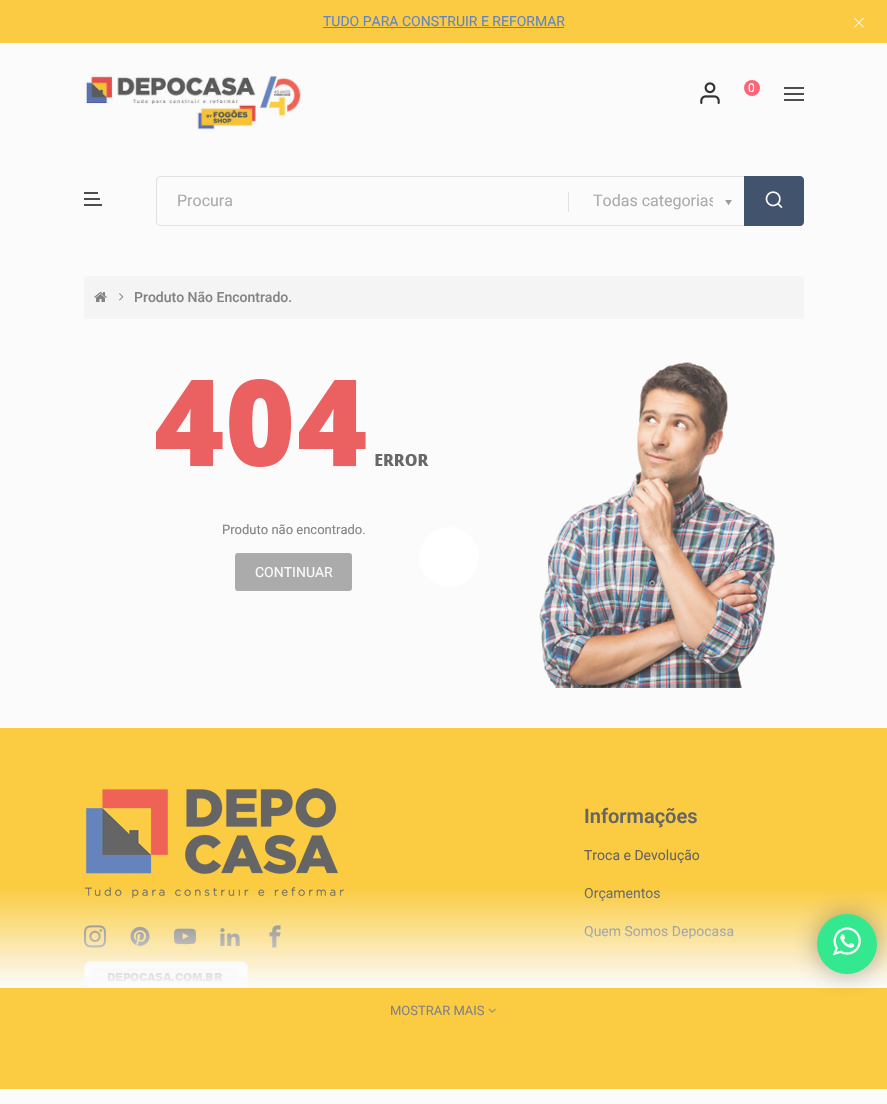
void draw(SkCanvas* canvas) {
	SkPaint paint;
	paint.setAntiAlias(true);
	auto svgPath = [&](const char* data, bool evenOdd = false) {
		SkPath result = *SkParsePath::FromSVGString(data);
		if (evenOdd) result.setFillType(SkPathFillType::kEvenOdd);
		return result;
	};
	canvas->clear(0xfffbfbfb);
	paint.setColor(0xfffbcb43);
	canvas->drawRect(SkRect::MakeXYWH(0, 0, 887, 43), paint);
	SkFont f1(fontMgr->matchFamilyStyle("Roboto", SkFontStyle::Normal()), 14);
	f1.setSubpixel(true);
	paint.setColor(0xff6284c3);
	canvas->drawString("TUDO PARA CONSTRUIR E REFORMAR", 323, 26, f1, paint);
	canvas->drawRect(SkRect::MakeXYWH(323, 27, 241, 1), paint);
	canvas->drawImageRect(SkImages::DeferredFromEncodedData(SkData::MakeFromFileName("img1.png")), SkRect::MakeXYWH(854, 17, 10, 11), SkSamplingOptions());
	canvas->drawImageRect(SkImages::DeferredFromEncodedData(SkData::MakeFromFileName("img2.png")), SkRect::MakeXYWH(84, 74, 217, 57), SkSamplingOptions());
	canvas->drawImageRect(SkImages::DeferredFromEncodedData(SkData::MakeFromFileName("img3.png")), SkRect::MakeXYWH(700, 82, 20, 22), SkSamplingOptions());
	paint.setColor(0xfffb6577);
	canvas->drawCircle(752, 88, 8, paint);
	SkFont f2(fontMgr->matchFamilyStyle("Roboto", SkFontStyle::Normal()), 12);
	f2.setSubpixel(true);
	paint.setColor(0xfffbfbfb);
	canvas->drawString("0", 748, 92, f2, paint);
	paint.setColor(0xff4d4d4d);
	canvas->drawRect(SkRect::MakeXYWH(784, 87, 20, 2), paint);
	canvas->drawRect(SkRect::MakeXYWH(784, 93, 20, 2), paint);
	canvas->drawRect(SkRect::MakeXYWH(784, 99, 20, 2), paint);
	canvas->drawRect(SkRect::MakeXYWH(84, 192, 14, 2), paint);
	canvas->drawRect(SkRect::MakeXYWH(84, 198, 16, 2), paint);
	canvas->drawRect(SkRect::MakeXYWH(84, 204, 18, 2), paint);
	paint.setStroke(true);
	paint.setStrokeWidth(1);
	paint.setColor(0xffe1e1e1);
	canvas->drawRoundRect(SkRect::MakeXYWH(156.5, 176.5, 647, 49), 3.5, 3.5, paint);
	SkFont f3(fontMgr->matchFamilyStyle("Roboto", SkFontStyle::Normal()), 16);
	f3.setSubpixel(true);
	paint.setStroke(false);
	paint.setColor(0xffababab);
	canvas->drawString("Procura", 177, 206, f3, paint);
	paint.setColor(0xffe1e1e1);
	canvas->drawRect(SkRect::MakeXYWH(568, 192, 1, 20), paint);
	paint.setColor(0xffababab);
	canvas->drawString("Todas categorias", 593, 206, f3, paint);
	paint.setColor(0xfffbfbfb);
	canvas->drawRect(SkRect::MakeXYWH(713, 197, 4, 10), paint);
	canvas->drawImageRect(SkImages::DeferredFromEncodedData(SkData::MakeFromFileName("img4.png")), SkRect::MakeXYWH(725, 200, 7, 6), SkSamplingOptions());
	paint.setColor(0xff42536d);
	canvas->drawPath(svgPath("M744 176H800C802 176 804 178 804 180V222C804 224 802 226 800 226H744Z"), paint);
	canvas->drawImageRect(SkImages::DeferredFromEncodedData(SkData::MakeFromFileName("img5.png")), SkRect::MakeXYWH(765, 191, 18, 17), SkSamplingOptions());
	paint.setColor(0xfff4f4f4);
	canvas->drawRoundRect(SkRect::MakeXYWH(84, 276, 720, 43), 4, 4, paint);
	canvas->drawImageRect(SkImages::DeferredFromEncodedData(SkData::MakeFromFileName("img6.png")), SkRect::MakeXYWH(94, 292, 13, 10), SkSamplingOptions());
	canvas->drawImageRect(SkImages::DeferredFromEncodedData(SkData::MakeFromFileName("img7.png")), SkRect::MakeXYWH(119, 293, 5, 8), SkSamplingOptions());
	SkFont f4(fontMgr->matchFamilyStyle("Roboto", SkFontStyle(500, SkFontStyle::kNormal_Width, SkFontStyle::kUpright_Slant)), 14);
	f4.setSubpixel(true);
	paint.setColor(0xff838383);
	canvas->drawString("Produto Não Encontrado.", 134, 302, f4, paint);
	canvas->drawImageRect(SkImages::DeferredFromEncodedData(SkData::MakeFromFileName("img8.png")), SkRect::MakeXYWH(156, 379, 273, 88), SkSamplingOptions());
	SkFont f5(fontMgr->matchFamilyStyle("Roboto", SkFontStyle::Normal()), 13);
	f5.setSubpixel(true);
	canvas->drawString("Produto não encontrado.", 222, 534, f5, paint);
	paint.setColor(0xffababab);
	canvas->drawRoundRect(SkRect::MakeXYWH(235, 553, 117, 38), 3, 3, paint);
	paint.setColor(0xfffbfbfb);
	canvas->drawString("CONTINUAR", 255, 577, f1, paint);
	canvas->drawImageRect(SkImages::DeferredFromEncodedData(SkData::MakeFromFileName("img9.png")), SkRect::MakeXYWH(539, 362, 236, 326), SkSamplingOptions());
	paint.setColor(0xffffffff);
	canvas->drawCircle(449, 557, 30, paint);
	paint.setColor(0xfffbcc41);
	canvas->drawRect(SkRect::MakeXYWH(0, 728, 887, 361), paint);
	canvas->drawImageRect(SkImages::DeferredFromEncodedData(SkData::MakeFromFileName("img10.png")), SkRect::MakeXYWH(85, 788, 259, 110), SkSamplingOptions());
	canvas->drawImageRect(SkImages::DeferredFromEncodedData(SkData::MakeFromFileName("img11.png")), SkRect::MakeXYWH(84, 925, 22, 23), SkSamplingOptions());
	canvas->drawImageRect(SkImages::DeferredFromEncodedData(SkData::MakeFromFileName("img12.png")), SkRect::MakeXYWH(130, 926, 20, 20), SkSamplingOptions());
	canvas->drawImageRect(SkImages::DeferredFromEncodedData(SkData::MakeFromFileName("img13.png")), SkRect::MakeXYWH(174, 928, 22, 17), SkSamplingOptions());
	canvas->drawImageRect(SkImages::DeferredFromEncodedData(SkData::MakeFromFileName("img14.png")), SkRect::MakeXYWH(220, 928, 20, 18), SkSamplingOptions());
	canvas->drawImageRect(SkImages::DeferredFromEncodedData(SkData::MakeFromFileName("img15.png")), SkRect::MakeXYWH(269, 925, 12, 23), SkSamplingOptions());
	canvas->drawImageRect(SkImages::DeferredFromEncodedData(SkData::MakeFromFileName("img16.png")), SkRect::MakeXYWH(84, 961, 164, 26), SkSamplingOptions());
	SkFont f6(fontMgr->matchFamilyStyle("Roboto", SkFontStyle(600, SkFontStyle::kNormal_Width, SkFontStyle::kUpright_Slant)), 20);
	f6.setSubpixel(true);
	paint.setColor(0xff656565);
	canvas->drawString("Informações", 584, 823, f6, paint);
	canvas->drawString("Troca e Devolução", 584, 860, f1, paint);
	canvas->drawString("Orçamentos", 584, 898, f1, paint);
	canvas->drawString("Quem Somos Depocasa", 584, 936, f1, paint);
	{
		const SkColor colors[] = {0x00fbfbfb, 0xfffbfbfb};
		const float stops[] = {0.5, 1};
		const SkPoint ends[] = {{444, 788}, {444, 988}};
		paint.setShader(SkGradientShader::MakeLinear(ends, colors, stops, 2, SkTileMode::kClamp));
		paint.setAlpha(255);
	}
	canvas->drawRect(SkRect::MakeXYWH(0, 890, 887, 98), paint);
	paint.setShader(nullptr);
	paint.setColor(0xff838383);
	canvas->drawString("MOSTRAR MAIS", 390, 1015, f5, paint);
	canvas->drawImageRect(SkImages::DeferredFromEncodedData(SkData::MakeFromFileName("img17.png")), SkRect::MakeXYWH(488, 1008, 8, 5), SkSamplingOptions());
	paint.setColor(0x66323232);
	paint.setMaskFilter(SkMaskFilter::MakeBlur(kNormal_SkBlurStyle, 12.5));
	canvas->drawRoundRect(SkRect::MakeXYWH(817, 914, 60, 60), 30, 30, paint);
	paint.setMaskFilter(nullptr);
	paint.setColor(0xff33e88e);
	canvas->drawCircle(847, 944, 30, paint);
	canvas->drawImageRect(SkImages::DeferredFromEncodedData(SkData::MakeFromFileName("img18.png")), SkRect::MakeXYWH(833, 927, 28, 29), SkSamplingOptions());
}
